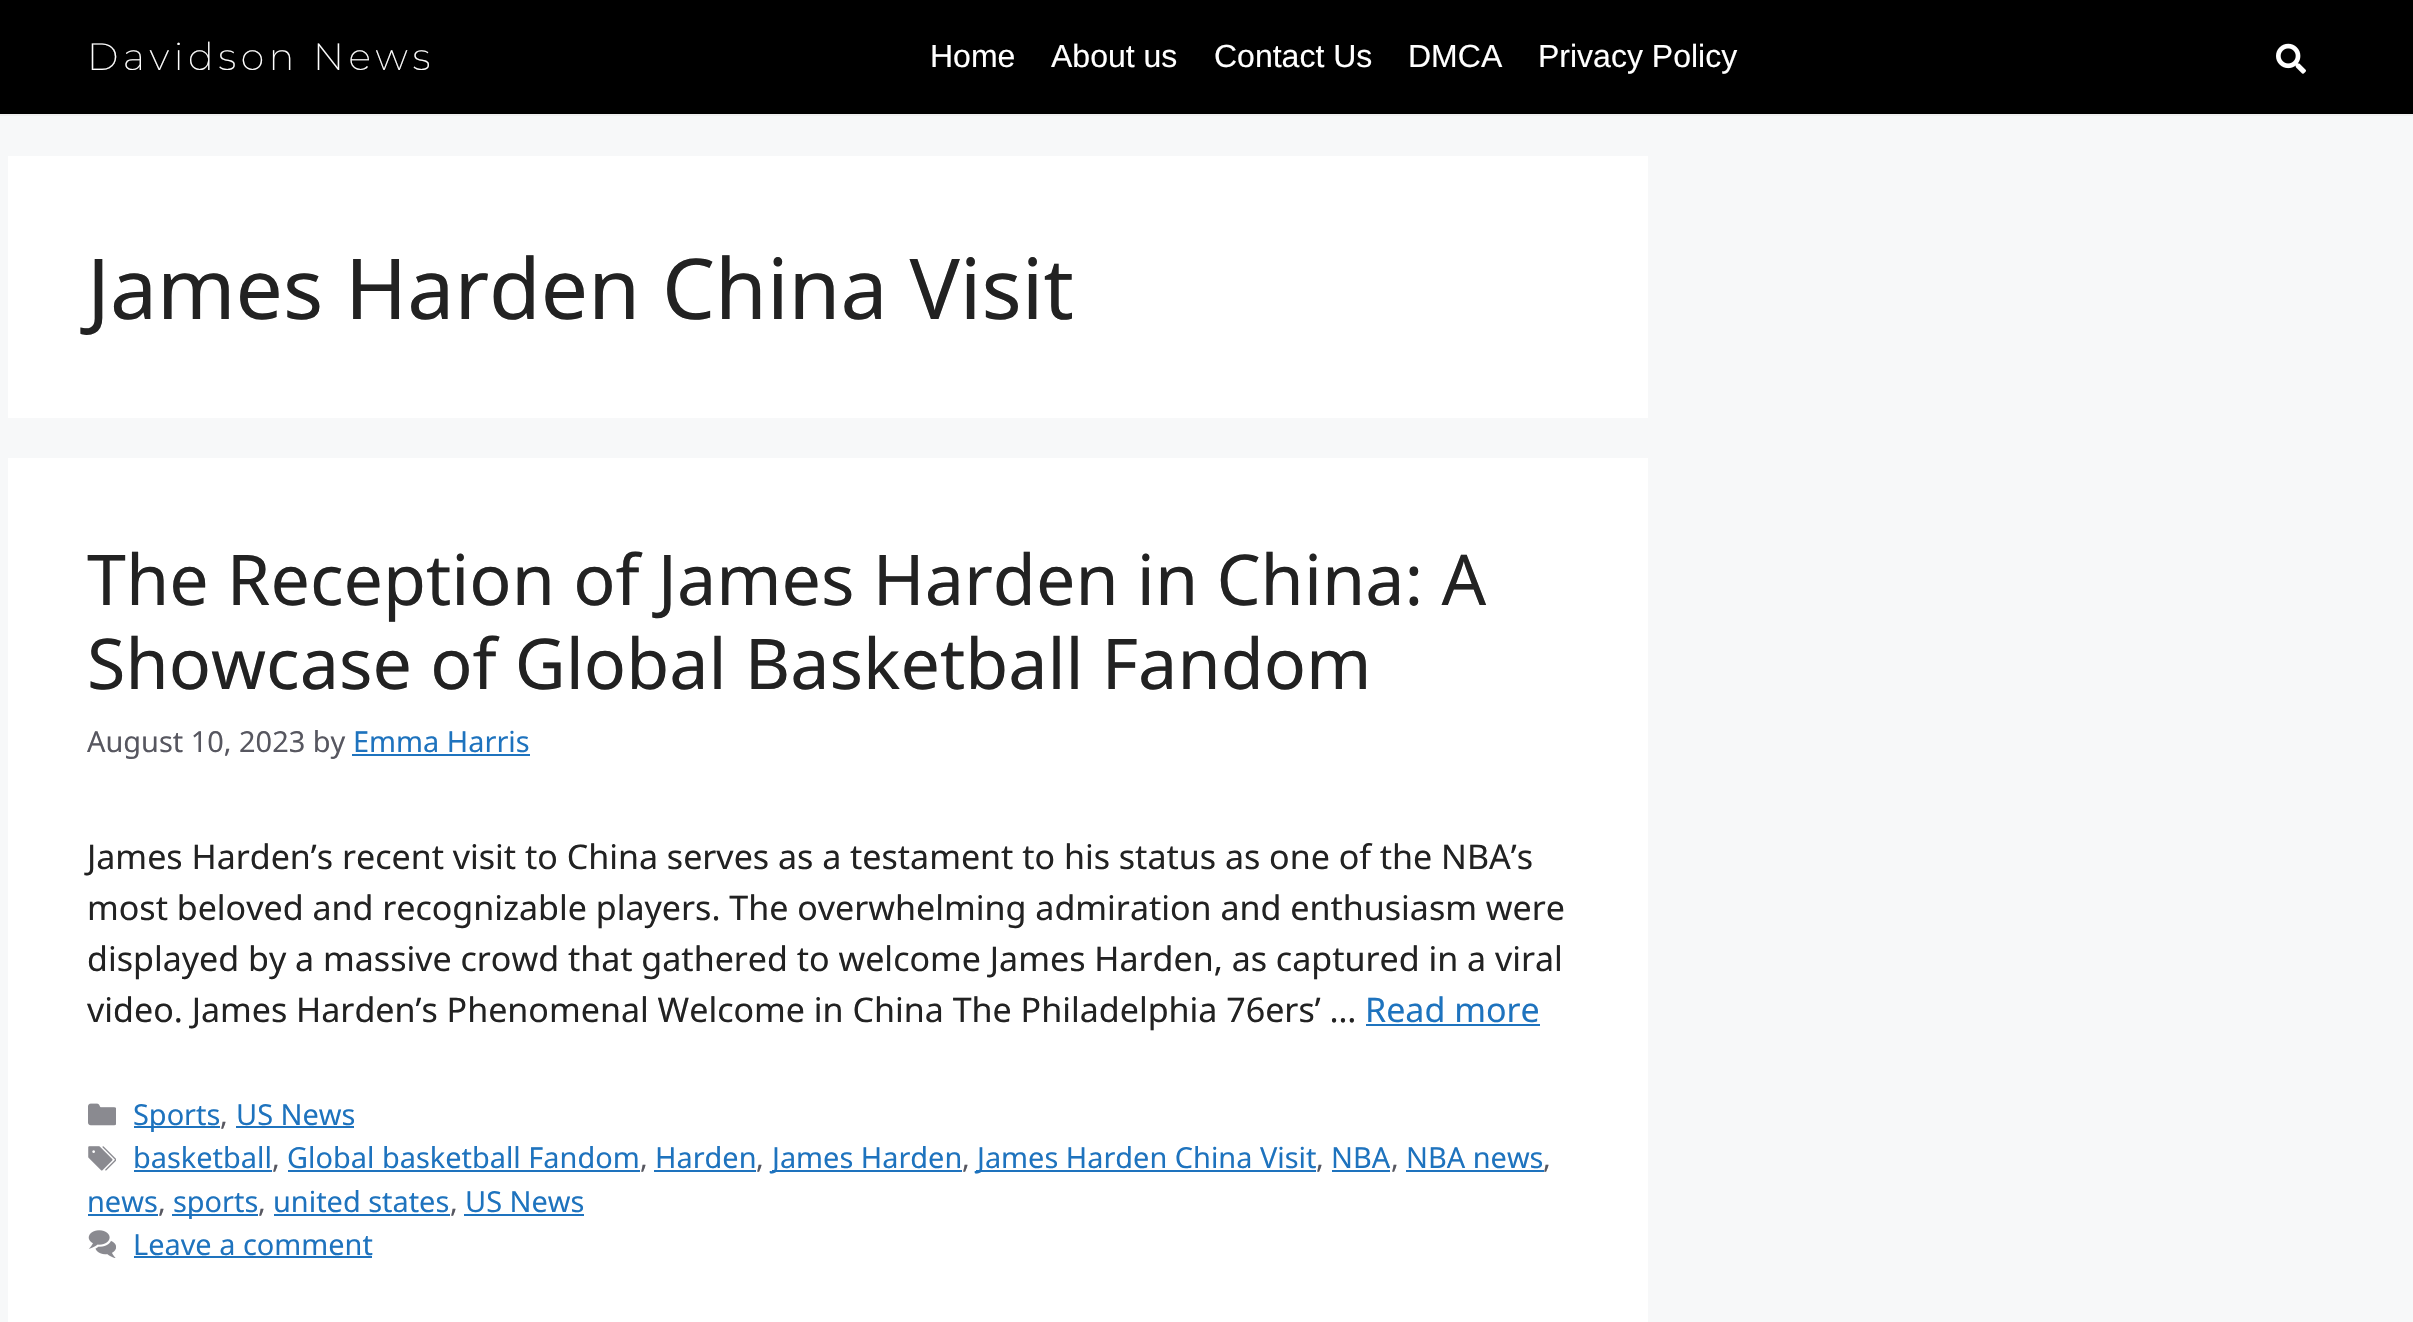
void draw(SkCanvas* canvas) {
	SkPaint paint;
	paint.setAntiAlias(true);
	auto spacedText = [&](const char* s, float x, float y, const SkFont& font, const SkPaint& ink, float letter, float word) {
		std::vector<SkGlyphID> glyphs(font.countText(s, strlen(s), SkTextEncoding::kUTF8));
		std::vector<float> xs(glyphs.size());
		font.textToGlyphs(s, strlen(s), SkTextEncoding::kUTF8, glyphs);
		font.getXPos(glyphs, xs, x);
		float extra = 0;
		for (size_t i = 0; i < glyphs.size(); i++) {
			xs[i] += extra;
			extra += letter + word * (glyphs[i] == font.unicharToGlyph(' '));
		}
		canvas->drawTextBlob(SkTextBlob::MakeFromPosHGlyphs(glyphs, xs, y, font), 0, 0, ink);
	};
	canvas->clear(0xfff7f8f9);
	paint.setColor(0xff000000);
	canvas->drawRect(SkRect::MakeXYWH(0, 0, 2413, 114), paint);
	paint.setColor(0xffefefef);
	canvas->drawRect(SkRect::MakeXYWH(0, 114, 2413, 2), paint);
	SkFont f1(fontMgr->matchFamilyStyle("Montserrat", SkFontStyle(200, SkFontStyle::kNormal_Width, SkFontStyle::kUpright_Slant)), 38);
	f1.setSubpixel(true);
	paint.setColor(0xffffffff);
	spacedText("Davidson News", 87, 70, f1, paint, 4.6, 0);
	SkFont f2(fontMgr->matchFamilyStyle("Liberation Sans", SkFontStyle::Normal()), 32);
	f2.setSubpixel(true);
	canvas->drawString("Home", 930, 67, f2, paint);
	canvas->drawString("About us", 1051, 67, f2, paint);
	canvas->drawString("Contact Us", 1214, 67, f2, paint);
	canvas->drawString("DMCA", 1408, 67, f2, paint);
	canvas->drawString("Privacy Policy", 1538, 67, f2, paint);
	canvas->drawImageRect(SkImages::DeferredFromEncodedData(SkData::MakeFromFileName("img1.png")), SkRect::MakeXYWH(2276, 43, 30, 31), SkSamplingOptions());
	canvas->drawRect(SkRect::MakeXYWH(8, 156, 1640, 262), paint);
	SkFont f3(fontMgr->matchFamilyStyle("Noto Sans", SkFontStyle::Normal()), 84);
	f3.setSubpixel(true);
	paint.setColor(0xff222222);
	canvas->drawString("James Harden China Visit", 87, 319, f3, paint);
	paint.setColor(0xffffffff);
	canvas->drawRect(SkRect::MakeXYWH(8, 458, 1640, 864), paint);
	SkFont f4(fontMgr->matchFamilyStyle("Noto Sans", SkFontStyle::Normal()), 70);
	f4.setSubpixel(true);
	paint.setColor(0xff222222);
	canvas->drawString("The Reception of James Harden in China: A", 87, 605, f4, paint);
	canvas->drawString("Showcase of Global Basketball Fandom", 87, 689, f4, paint);
	SkFont f5(fontMgr->matchFamilyStyle("Noto Sans", SkFontStyle::Normal()), 28.9);
	f5.setSubpixel(true);
	paint.setColor(0xff575760);
	canvas->drawString("August 10, 2023 by", 87, 752, f5, paint);
	paint.setColor(0xff1e73be);
	canvas->drawString("Emma Harris", 353, 752, f5, paint);
	canvas->drawRect(SkRect::MakeXYWH(352, 754, 178, 2), paint);
	SkFont f6(fontMgr->matchFamilyStyle("Noto Sans", SkFontStyle::Normal()), 34);
	f6.setSubpixel(true);
	paint.setColor(0xff222222);
	canvas->drawString("James Harden’s recent visit to China serves as a testament to his status as one of the NBA’s", 87, 869, f6, paint);
	canvas->drawString("most beloved and recognizable players. The overwhelming admiration and enthusiasm were", 87, 920, f6, paint);
	canvas->drawString("displayed by a massive crowd that gathered to welcome James Harden, as captured in a viral", 87, 971, f6, paint);
	canvas->drawString("video. James Harden’s Phenomenal Welcome in China The Philadelphia 76ers’ …", 87, 1022, f6, paint);
	paint.setColor(0xff1e73be);
	canvas->drawString("Read more", 1365, 1022, f6, paint);
	canvas->drawRect(SkRect::MakeXYWH(1366, 1024, 174, 2), paint);
	canvas->drawImageRect(SkImages::DeferredFromEncodedData(SkData::MakeFromFileName("img2.png")), SkRect::MakeXYWH(88, 1103, 28, 23), SkSamplingOptions());
	canvas->drawRect(SkRect::MakeXYWH(134, 1126, 86, 2), paint);
	canvas->drawString("Sports", 133, 1125, f5, paint);
	paint.setColor(0xff575760);
	canvas->drawString(",", 220, 1125, f5, paint);
	paint.setColor(0xff1e73be);
	canvas->drawString("US News", 236, 1125, f5, paint);
	canvas->drawRect(SkRect::MakeXYWH(236, 1126, 118, 2), paint);
	canvas->drawImageRect(SkImages::DeferredFromEncodedData(SkData::MakeFromFileName("img3.png")), SkRect::MakeXYWH(88, 1146, 28, 25), SkSamplingOptions());
	canvas->drawString("basketball", 133, 1168, f5, paint);
	canvas->drawRect(SkRect::MakeXYWH(134, 1170, 138, 2), paint);
	paint.setColor(0xff575760);
	canvas->drawString(",", 272, 1168, f5, paint);
	paint.setColor(0xff1e73be);
	canvas->drawString("Global basketball Fandom", 287, 1168, f5, paint);
	canvas->drawRect(SkRect::MakeXYWH(288, 1170, 352, 2), paint);
	paint.setColor(0xff575760);
	canvas->drawString(",", 640, 1168, f5, paint);
	paint.setColor(0xff1e73be);
	canvas->drawString("Harden", 655, 1168, f5, paint);
	canvas->drawRect(SkRect::MakeXYWH(654, 1170, 102, 2), paint);
	paint.setColor(0xff575760);
	canvas->drawString(",", 756, 1168, f5, paint);
	paint.setColor(0xff1e73be);
	canvas->drawRect(SkRect::MakeXYWH(772, 1170, 190, 2), paint);
	canvas->drawString("James Harden", 772, 1168, f5, paint);
	paint.setColor(0xff575760);
	canvas->drawString(",", 962, 1168, f5, paint);
	paint.setColor(0xff1e73be);
	canvas->drawRect(SkRect::MakeXYWH(976, 1170, 340, 2), paint);
	canvas->drawString("James Harden China Visit", 977, 1168, f5, paint);
	paint.setColor(0xff575760);
	canvas->drawString(",", 1316, 1168, f5, paint);
	paint.setColor(0xff1e73be);
	canvas->drawString("NBA", 1331, 1168, f5, paint);
	canvas->drawRect(SkRect::MakeXYWH(1332, 1170, 58, 2), paint);
	paint.setColor(0xff575760);
	canvas->drawString(",", 1391, 1168, f5, paint);
	paint.setColor(0xff1e73be);
	canvas->drawString("NBA news", 1406, 1168, f5, paint);
	canvas->drawRect(SkRect::MakeXYWH(1406, 1170, 138, 2), paint);
	paint.setColor(0xff575760);
	canvas->drawString(",", 1543, 1168, f5, paint);
	paint.setColor(0xff1e73be);
	canvas->drawString("news", 87, 1212, f5, paint);
	canvas->drawRect(SkRect::MakeXYWH(88, 1214, 70, 2), paint);
	paint.setColor(0xff575760);
	canvas->drawString(",", 158, 1212, f5, paint);
	paint.setColor(0xff1e73be);
	canvas->drawRect(SkRect::MakeXYWH(172, 1214, 86, 2), paint);
	canvas->drawString("sports", 173, 1212, f5, paint);
	paint.setColor(0xff575760);
	canvas->drawString(",", 258, 1212, f5, paint);
	paint.setColor(0xff1e73be);
	canvas->drawString("united states", 273, 1212, f5, paint);
	canvas->drawRect(SkRect::MakeXYWH(274, 1214, 176, 2), paint);
	paint.setColor(0xff575760);
	canvas->drawString(",", 450, 1212, f5, paint);
	paint.setColor(0xff1e73be);
	canvas->drawString("US News", 465, 1212, f5, paint);
	canvas->drawRect(SkRect::MakeXYWH(464, 1214, 120, 2), paint);
	canvas->drawImageRect(SkImages::DeferredFromEncodedData(SkData::MakeFromFileName("img4.png")), SkRect::MakeXYWH(88, 1230, 28, 28), SkSamplingOptions());
	canvas->drawString("Leave a comment", 133, 1255, f5, paint);
	canvas->drawRect(SkRect::MakeXYWH(134, 1256, 238, 2), paint);
}
